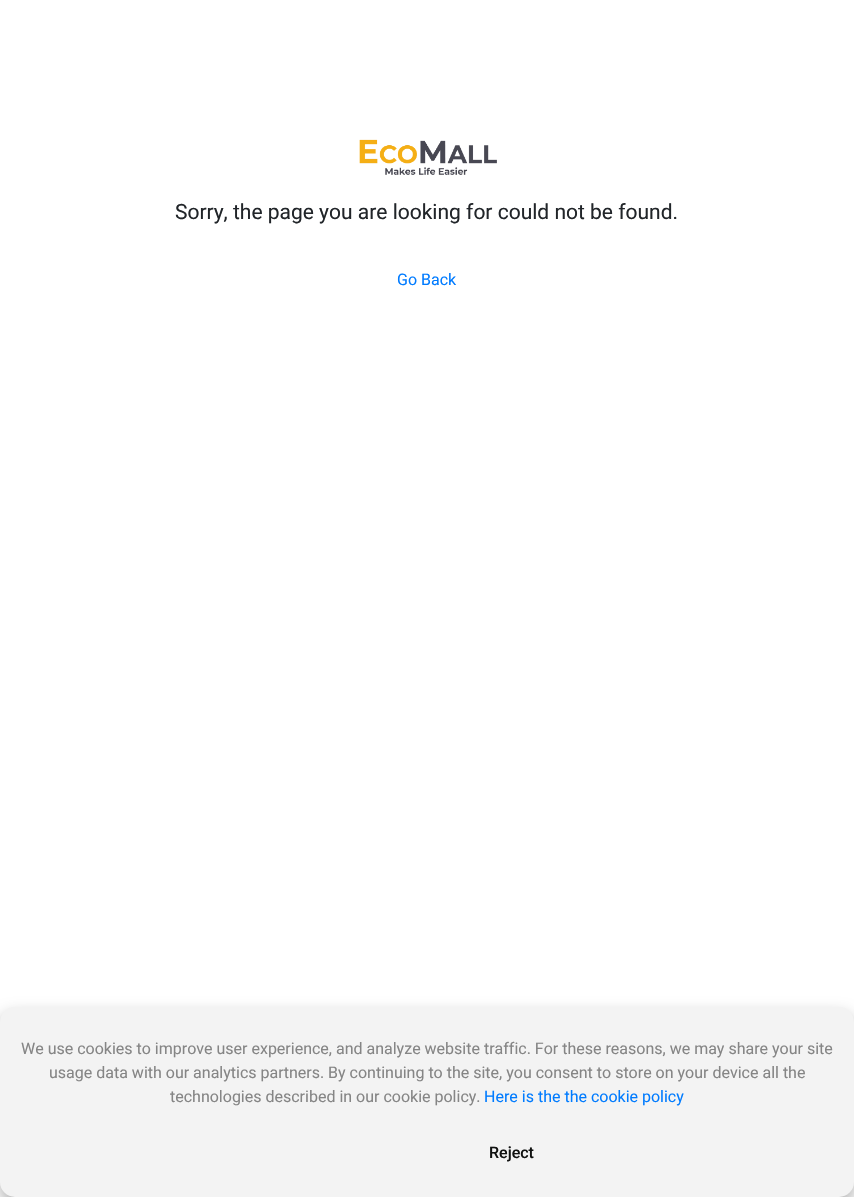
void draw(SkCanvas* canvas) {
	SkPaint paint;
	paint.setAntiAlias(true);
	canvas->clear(0xffffffff);
	canvas->drawImageRect(SkImages::DeferredFromEncodedData(SkData::MakeFromFileName("img1.png")), SkRect::MakeXYWH(359, 139, 138, 36), SkSamplingOptions());
	SkFont f1(fontMgr->matchFamilyStyle("Roboto", SkFontStyle::Normal()), 21);
	f1.setSubpixel(true);
	paint.setColor(0xff212529);
	canvas->drawString("Sorry, the page you are looking for could not be found.", 175, 219, f1, paint);
	SkFont f2(fontMgr->matchFamilyStyle("Roboto", SkFontStyle::Normal()), 16);
	f2.setSubpixel(true);
	paint.setColor(0xff007bff);
	canvas->drawString("Go Back", 397, 285, f2, paint);
	paint.setColor(0x4d000000);
	paint.setMaskFilter(SkMaskFilter::MakeBlur(kNormal_SkBlurStyle, 8));
	canvas->drawRoundRect(SkRect::MakeXYWH(0, 1015, 854, 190), 15, 15, paint);
	paint.setMaskFilter(nullptr);
	paint.setColor(0xfff3f3f3);
	canvas->drawRoundRect(SkRect::MakeXYWH(0, 1007, 854, 190), 15, 15, paint);
	paint.setColor(0xff858585);
	canvas->drawString("We use cookies to improve user experience, and analyze website traffic. For these reasons, we may share your site", 21, 1054, f2, paint);
	canvas->drawString("usage data with our analytics partners. By continuing to the site, you consent to store on your device all the", 49, 1078, f2, paint);
	canvas->drawString("technologies described in our cookie policy.", 170, 1102, f2, paint);
	paint.setColor(0xff007bff);
	canvas->drawString("Here is the the cookie policy", 484, 1102, f2, paint);
	SkFont f3(fontMgr->matchFamilyStyle("Roboto", SkFontStyle(500, SkFontStyle::kNormal_Width, SkFontStyle::kUpright_Slant)), 16);
	f3.setSubpixel(true);
	paint.setColor(0xff111211);
	canvas->drawString("Reject", 489, 1158, f3, paint);
}
